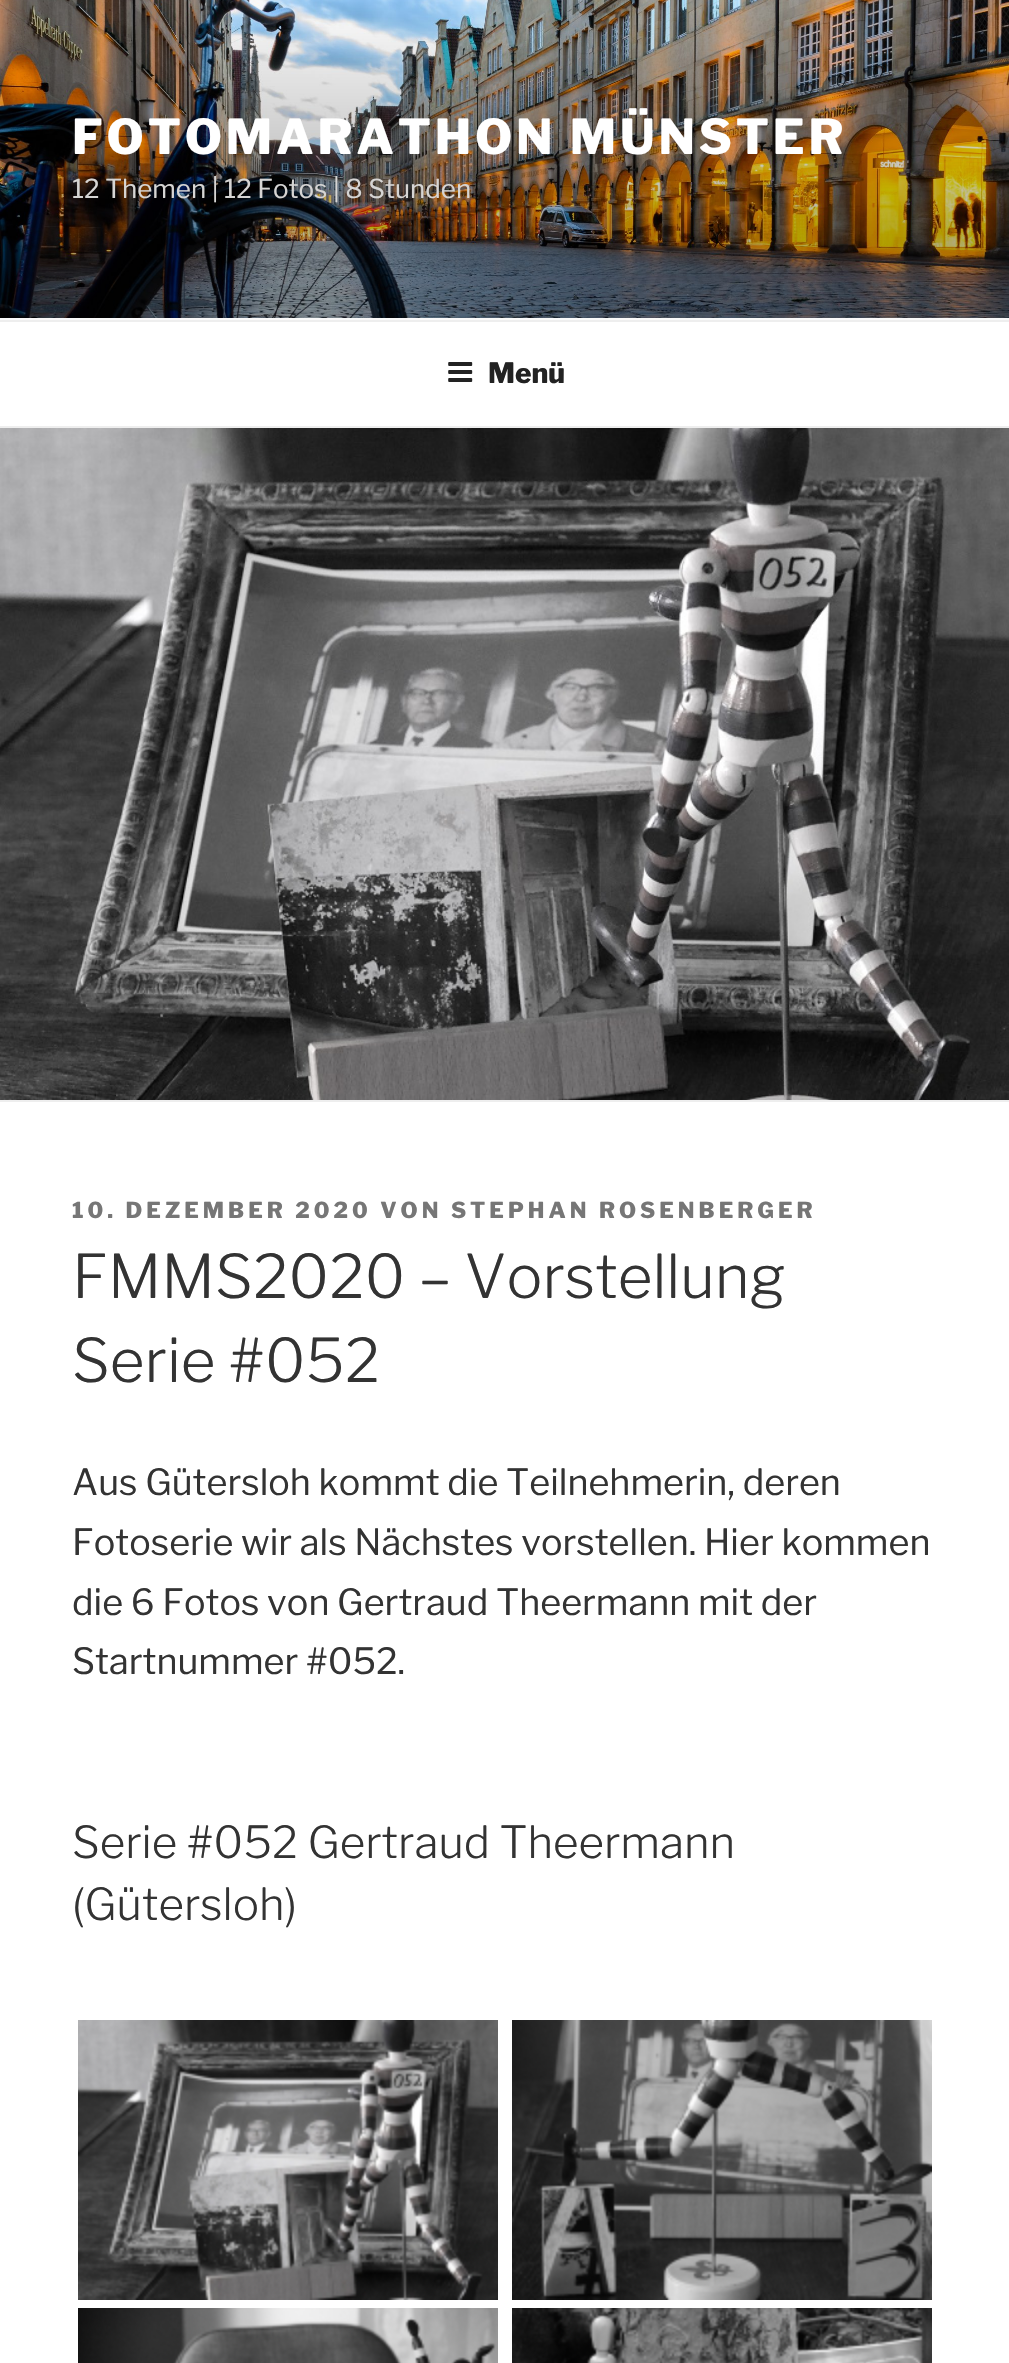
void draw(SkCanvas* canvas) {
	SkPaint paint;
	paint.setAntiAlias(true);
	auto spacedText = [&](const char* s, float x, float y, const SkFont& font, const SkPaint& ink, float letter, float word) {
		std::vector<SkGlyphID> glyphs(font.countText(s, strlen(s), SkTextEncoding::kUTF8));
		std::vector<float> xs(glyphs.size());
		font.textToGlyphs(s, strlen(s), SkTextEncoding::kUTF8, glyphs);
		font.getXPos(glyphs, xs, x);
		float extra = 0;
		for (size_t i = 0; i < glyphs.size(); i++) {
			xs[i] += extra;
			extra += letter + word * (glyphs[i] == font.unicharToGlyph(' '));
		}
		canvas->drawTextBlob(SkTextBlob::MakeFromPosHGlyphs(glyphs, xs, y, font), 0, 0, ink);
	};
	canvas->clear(0xffffffff);
	paint.setColor(0xfffafafa);
	canvas->drawRect(SkRect::MakeXYWH(0, 318, 1009, 2), paint);
	canvas->drawImageRect(SkImages::DeferredFromEncodedData(SkData::MakeFromFileName("img1.png")), SkRect::MakeXYWH(0, 0, 1009, 318), SkSamplingOptions());
	SkFont f1(fontMgr->matchFamilyStyle("Libre Franklin", SkFontStyle(800, SkFontStyle::kNormal_Width, SkFontStyle::kUpright_Slant)), 48);
	f1.setSubpixel(true);
	paint.setColor(0xffffffff);
	spacedText("FOTOMARATHON MÜNSTER", 72, 154, f1, paint, 3.8, 0);
	SkFont f2(fontMgr->matchFamilyStyle("Libre Franklin", SkFontStyle::Normal()), 26);
	f2.setSubpixel(true);
	paint.setColor(0xffd6d5d4);
	canvas->drawString("12 Themen | 12 Fotos | 8 Stunden", 72, 198, f2, paint);
	paint.setColor(0xffeeeeee);
	canvas->drawRect(SkRect::MakeXYWH(0, 320, 1009, 2), paint);
	canvas->drawRect(SkRect::MakeXYWH(0, 426, 1009, 2), paint);
	canvas->drawImageRect(SkImages::DeferredFromEncodedData(SkData::MakeFromFileName("img2.png")), SkRect::MakeXYWH(448, 362, 25, 20), SkSamplingOptions());
	SkFont f3(fontMgr->matchFamilyStyle("Libre Franklin", SkFontStyle(800, SkFontStyle::kNormal_Width, SkFontStyle::kUpright_Slant)), 28);
	f3.setSubpixel(true);
	paint.setColor(0xff222222);
	canvas->drawString("Menü", 488, 383, f3, paint);
	paint.setColor(0xffeeeeee);
	canvas->drawRect(SkRect::MakeXYWH(0, 1100, 1009, 2), paint);
	canvas->drawImageRect(SkImages::DeferredFromEncodedData(SkData::MakeFromFileName("img3.png")), SkRect::MakeXYWH(0, 428, 1009, 672), SkSamplingOptions());
	SkFont f4(fontMgr->matchFamilyStyle("Libre Franklin", SkFontStyle(800, SkFontStyle::kNormal_Width, SkFontStyle::kUpright_Slant)), 22);
	f4.setSubpixel(true);
	paint.setColor(0xff767676);
	spacedText("10. DEZEMBER 2020 VON STEPHAN ROSENBERGER", 72, 1218, f4, paint, 4, 0);
	SkFont f5(fontMgr->matchFamilyStyle("Libre Franklin", SkFontStyle(300, SkFontStyle::kNormal_Width, SkFontStyle::kUpright_Slant)), 60);
	f5.setSubpixel(true);
	paint.setColor(0xff333333);
	canvas->drawString("FMMS2020 – Vorstellung", 72, 1298, f5, paint);
	canvas->drawString("Serie #052", 72, 1382, f5, paint);
	SkFont f6(fontMgr->matchFamilyStyle("Libre Franklin", SkFontStyle::Normal()), 36);
	f6.setSubpixel(true);
	canvas->drawString("Aus Gütersloh kommt die Teilnehmerin, deren", 72, 1495, f6, paint);
	canvas->drawString("Fotoserie wir als Nächstes vorstellen. Hier kommen", 72, 1555, f6, paint);
	canvas->drawString("die 6 Fotos von Gertraud Theermann mit der", 72, 1615, f6, paint);
	canvas->drawString("Startnummer #052.", 72, 1674, f6, paint);
	SkFont f7(fontMgr->matchFamilyStyle("Libre Franklin", SkFontStyle(300, SkFontStyle::kNormal_Width, SkFontStyle::kUpright_Slant)), 44);
	f7.setSubpixel(true);
	canvas->drawString("Serie #052 Gertraud Theermann", 72, 1858, f7, paint);
	canvas->drawString("(Gütersloh)", 72, 1920, f7, paint);
	canvas->drawImageRect(SkImages::DeferredFromEncodedData(SkData::MakeFromFileName("img4.png")), SkRect::MakeXYWH(78, 2020, 420, 280), SkSamplingOptions());
	canvas->drawImageRect(SkImages::DeferredFromEncodedData(SkData::MakeFromFileName("img5.png")), SkRect::MakeXYWH(512, 2020, 420, 280), SkSamplingOptions());
	canvas->drawImageRect(SkImages::DeferredFromEncodedData(SkData::MakeFromFileName("img6.png")), SkRect::MakeXYWH(78, 2308, 420, 55), SkSamplingOptions());
	canvas->drawImageRect(SkImages::DeferredFromEncodedData(SkData::MakeFromFileName("img7.png")), SkRect::MakeXYWH(512, 2308, 420, 55), SkSamplingOptions());
}
